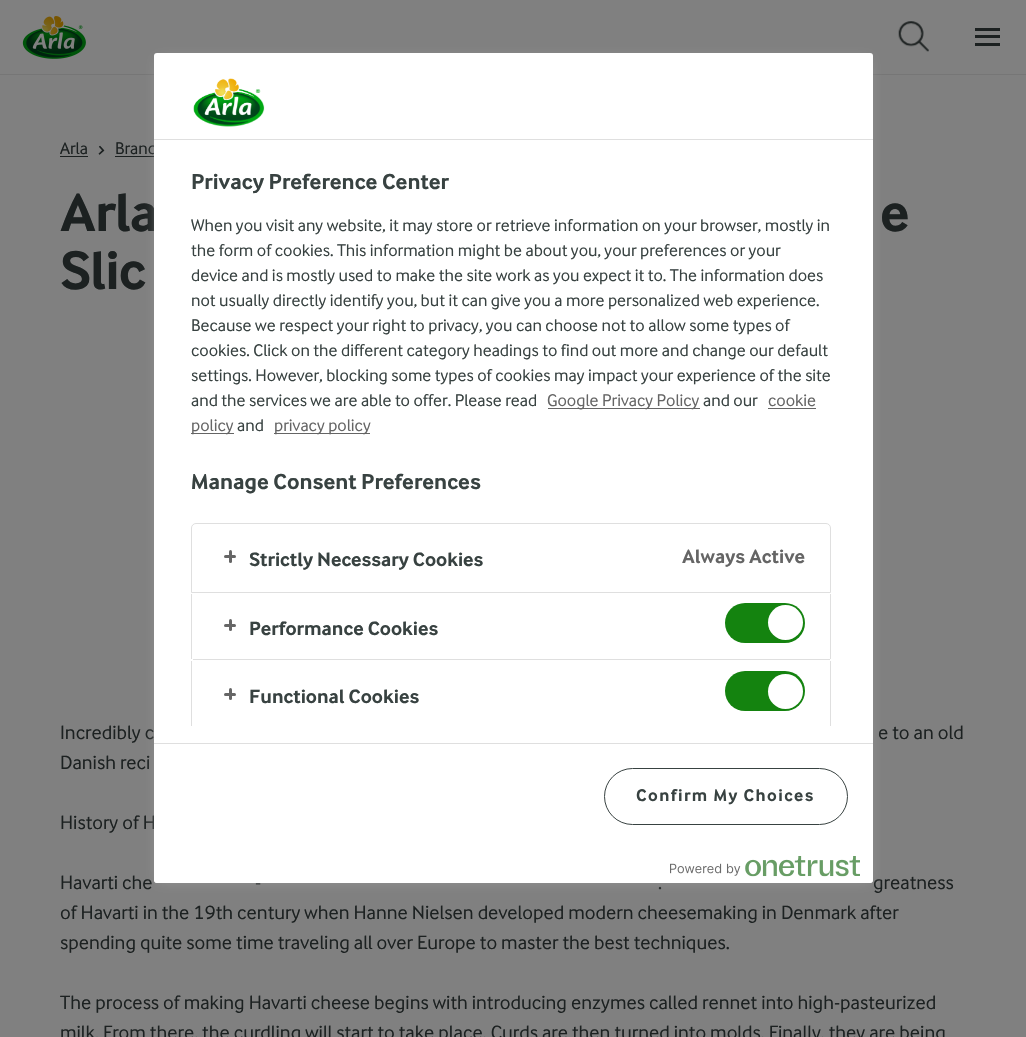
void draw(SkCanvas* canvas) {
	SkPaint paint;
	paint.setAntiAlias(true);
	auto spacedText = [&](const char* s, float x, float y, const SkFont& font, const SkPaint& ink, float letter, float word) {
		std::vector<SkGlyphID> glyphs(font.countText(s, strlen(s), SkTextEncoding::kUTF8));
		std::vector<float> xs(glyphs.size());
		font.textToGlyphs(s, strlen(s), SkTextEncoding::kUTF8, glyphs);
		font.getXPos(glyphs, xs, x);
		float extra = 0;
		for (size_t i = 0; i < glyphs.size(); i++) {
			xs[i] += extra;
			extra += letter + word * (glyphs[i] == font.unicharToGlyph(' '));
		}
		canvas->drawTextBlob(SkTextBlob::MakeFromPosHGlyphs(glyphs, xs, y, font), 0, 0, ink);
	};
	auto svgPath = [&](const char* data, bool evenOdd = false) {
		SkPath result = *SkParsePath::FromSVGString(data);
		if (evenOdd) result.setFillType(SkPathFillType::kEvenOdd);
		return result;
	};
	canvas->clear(0xff808080);
	canvas->drawImageRect(SkImages::DeferredFromEncodedData(SkData::MakeFromFileName("img1.png")), SkRect::MakeXYWH(22, 16, 64, 43), SkSamplingOptions());
	canvas->drawImageRect(SkImages::DeferredFromEncodedData(SkData::MakeFromFileName("img2.png")), SkRect::MakeXYWH(898, 21, 31, 31), SkSamplingOptions());
	paint.setColor(0xff1c2121);
	canvas->drawRect(SkRect::MakeXYWH(975, 28, 25, 3), paint);
	canvas->drawRect(SkRect::MakeXYWH(975, 35, 25, 3), paint);
	canvas->drawRect(SkRect::MakeXYWH(975, 43, 25, 3), paint);
	paint.setColor(0xff767676);
	canvas->drawRect(SkRect::MakeXYWH(0, 74, 1026, 1), paint);
	SkFont f1(fontMgr->matchFamilyStyle("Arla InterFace", SkFontStyle::Normal()), 17.5);
	f1.setSubpixel(true);
	paint.setColor(0xff1c2121);
	canvas->drawString("Arla", 60, 154, f1, paint);
	canvas->drawRect(SkRect::MakeXYWH(60, 156, 28, 1), paint);
	SkFont f2(fontMgr->matchFamilyStyle("Arla InterFace", SkFontStyle::Normal()), 22.5);
	f2.setSubpixel(true);
	canvas->drawString("›", 98, 156, f2, paint);
	canvas->drawString("Brand", 115, 154, f1, paint);
	canvas->drawRect(SkRect::MakeXYWH(115, 156, 39, 1), paint);
	SkFont f3(fontMgr->matchFamilyStyle("Arla InterFace", SkFontStyle::Bold()), 56);
	f3.setSubpixel(true);
	spacedText("Arla", 60, 231, f3, paint, -1, 0);
	spacedText("e", 880, 231, f3, paint, -1, 0);
	spacedText("Slic", 60, 289, f3, paint, -1, 0);
	SkFont f4(fontMgr->matchFamilyStyle("Arla InterFace", SkFontStyle::Normal()), 20);
	f4.setSubpixel(true);
	canvas->drawString("Incredibly c", 60, 739, f4, paint);
	canvas->drawString("e to an old", 878, 739, f4, paint);
	canvas->drawString("Danish reci", 60, 769, f4, paint);
	canvas->drawString("History of H", 60, 829, f4, paint);
	canvas->drawString("Havarti che", 60, 889, f4, paint);
	canvas->drawString("-", 255, 889, f4, paint);
	canvas->drawString("greatness", 873, 889, f4, paint);
	canvas->drawString(".", 658, 889, f4, paint);
	canvas->drawString("of Havarti in the 19th century when Hanne Nielsen developed modern cheesemaking in Denmark after", 60, 919, f4, paint);
	canvas->drawString("spending quite some time traveling all over Europe to master the best techniques.", 60, 949, f4, paint);
	canvas->drawString("The process of making Havarti cheese begins with introducing enzymes called rennet into high-pasteurized", 60, 1009, f4, paint);
	canvas->drawString("milk. From there, the curdling will start to take place. Curds are then turned into molds. Finally, they are being", 60, 1039, f4, paint);
	paint.setColor(0xff999999);
	paint.setMaskFilter(SkMaskFilter::MakeBlur(kNormal_SkBlurStyle, 6));
	canvas->drawRect(SkRect::MakeXYWH(158, 59, 711, 822), paint);
	paint.setMaskFilter(nullptr);
	paint.setColor(0xffffffff);
	canvas->drawRoundRect(SkRect::MakeXYWH(154, 53, 719, 830), 3, 3, paint);
	paint.setColor(0xffdfdfdf);
	canvas->drawRect(SkRect::MakeXYWH(154, 139, 719, 1), paint);
	canvas->drawImageRect(SkImages::DeferredFromEncodedData(SkData::MakeFromFileName("img3.png")), SkRect::MakeXYWH(193, 78, 72, 49), SkSamplingOptions());
	SkFont f5(fontMgr->matchFamilyStyle("Arla InterFace", SkFontStyle::Bold()), 22.5);
	f5.setSubpixel(true);
	paint.setColor(0xff384241);
	canvas->drawString("Privacy Preference Center", 191, 189, f5, paint);
	canvas->drawString("When you visit any website, it may store or retrieve information on your browser, mostly in", 191, 231, f1, paint);
	canvas->drawString("the form of cookies. This information might be about you, your preferences or your", 191, 256, f1, paint);
	canvas->drawString("device and is mostly used to make the site work as you expect it to. The information does", 191, 281, f1, paint);
	canvas->drawString("not usually directly identify you, but it can give you a more personalized web experience.", 191, 306, f1, paint);
	canvas->drawString("Because we respect your right to privacy, you can choose not to allow some types of", 191, 331, f1, paint);
	canvas->drawString("cookies. Click on the different category headings to find out more and change our default", 191, 356, f1, paint);
	canvas->drawString("settings. However, blocking some types of cookies may impact your experience of the site", 191, 381, f1, paint);
	canvas->drawString("and the services we are able to offer. Please read", 191, 406, f1, paint);
	paint.setColor(0xff656565);
	canvas->drawRect(SkRect::MakeXYWH(548, 408, 152, 1), paint);
	canvas->drawString("Google Privacy Policy", 547, 406, f1, paint);
	paint.setColor(0xff384241);
	canvas->drawString("and our", 703, 406, f1, paint);
	paint.setColor(0xff656565);
	canvas->drawString("cookie", 768, 406, f1, paint);
	canvas->drawRect(SkRect::MakeXYWH(768, 408, 48, 1), paint);
	canvas->drawRect(SkRect::MakeXYWH(191, 433, 43, 1), paint);
	canvas->drawString("policy", 191, 431, f1, paint);
	paint.setColor(0xff384241);
	canvas->drawString("and", 237, 431, f1, paint);
	paint.setColor(0xff656565);
	canvas->drawRect(SkRect::MakeXYWH(274, 433, 96, 1), paint);
	canvas->drawString("privacy policy", 274, 431, f1, paint);
	paint.setColor(0xff384241);
	canvas->drawString("Manage Consent Preferences", 191, 489, f5, paint);
	paint.setStroke(true);
	paint.setStrokeWidth(1);
	paint.setColor(0xffdfdfdf);
	canvas->drawPath(svgPath("M196 523.5H826C828.5 523.5 830.5 525.5 830.5 528V592.5H191.5V528C191.5 525.5 193.5 523.5 196 523.5Z"), paint);
	paint.setStroke(false);
	paint.setColor(0xff666666);
	canvas->drawRoundRect(SkRect::MakeXYWH(229, 550, 3, 13), 1.5, 1.5, paint);
	canvas->drawRoundRect(SkRect::MakeXYWH(224, 555, 12, 3), 1.5, 1.5, paint);
	SkFont f6(fontMgr->matchFamilyStyle("Arla InterFace", SkFontStyle::Bold()), 20);
	f6.setSubpixel(true);
	paint.setColor(0xff384241);
	canvas->drawString("Strictly Necessary Cookies", 249, 566, f6, paint);
	paint.setColor(0xff656565);
	canvas->drawString("Always Active", 682, 563, f6, paint);
	paint.setColor(0xffdfdfdf);
	canvas->drawRect(SkRect::MakeXYWH(830, 594, 1, 65), paint);
	canvas->drawRect(SkRect::MakeXYWH(193, 659, 637, 1), paint);
	canvas->drawRect(SkRect::MakeXYWH(191, 594, 1, 65), paint);
	paint.setColor(0xff666666);
	canvas->drawRoundRect(SkRect::MakeXYWH(229, 619, 3, 12), 1.5, 1.5, paint);
	canvas->drawRoundRect(SkRect::MakeXYWH(224, 624, 12, 3), 1.5, 1.5, paint);
	paint.setColor(0xff384241);
	canvas->drawString("Performance Cookies", 249, 635, f6, paint);
	paint.setColor(0xff14830f);
	canvas->drawRoundRect(SkRect::MakeXYWH(725, 603, 80, 40), 20, 20, paint);
	paint.setColor(0xffffffff);
	canvas->drawCircle(785.5, 622.5, 17.5, paint);
	paint.setColor(0xffdfdfdf);
	canvas->drawRect(SkRect::MakeXYWH(830, 661, 1, 65), paint);
	canvas->drawRect(SkRect::MakeXYWH(191, 661, 1, 65), paint);
	paint.setColor(0xff666666);
	canvas->drawRoundRect(SkRect::MakeXYWH(229, 688, 3, 12), 1.5, 1.5, paint);
	canvas->drawRoundRect(SkRect::MakeXYWH(224, 693, 12, 3), 1.5, 1.5, paint);
	paint.setColor(0xff384241);
	canvas->drawString("Functional Cookies", 249, 703, f6, paint);
	paint.setColor(0xff14830f);
	canvas->drawRoundRect(SkRect::MakeXYWH(725, 671, 80, 40), 20, 20, paint);
	paint.setColor(0xffffffff);
	canvas->drawCircle(785.5, 691.5, 17.5, paint);
	paint.setColor(0xffdfdfdf);
	canvas->drawRect(SkRect::MakeXYWH(154, 743, 719, 1), paint);
	paint.setStroke(true);
	paint.setColor(0xff384241);
	canvas->drawRoundRect(SkRect::MakeXYWH(604.5, 768.5, 243, 56), 28, 28, paint);
	SkFont f7(fontMgr->matchFamilyStyle("Arla InterFace", SkFontStyle::Bold()), 17.5);
	f7.setSubpixel(true);
	paint.setStroke(false);
	spacedText("Confirm My Choices", 636, 801, f7, paint, 1.4, 0);
	paint.setColor(0xffffffff);
	canvas->drawPath(svgPath("M154 845H873V880C873 881.5 871.5 883 870 883H157C155.5 883 154 881.5 154 880Z"), paint);
	canvas->drawImageRect(SkImages::DeferredFromEncodedData(SkData::MakeFromFileName("img4.png")), SkRect::MakeXYWH(670, 856, 190, 21), SkSamplingOptions());
}
